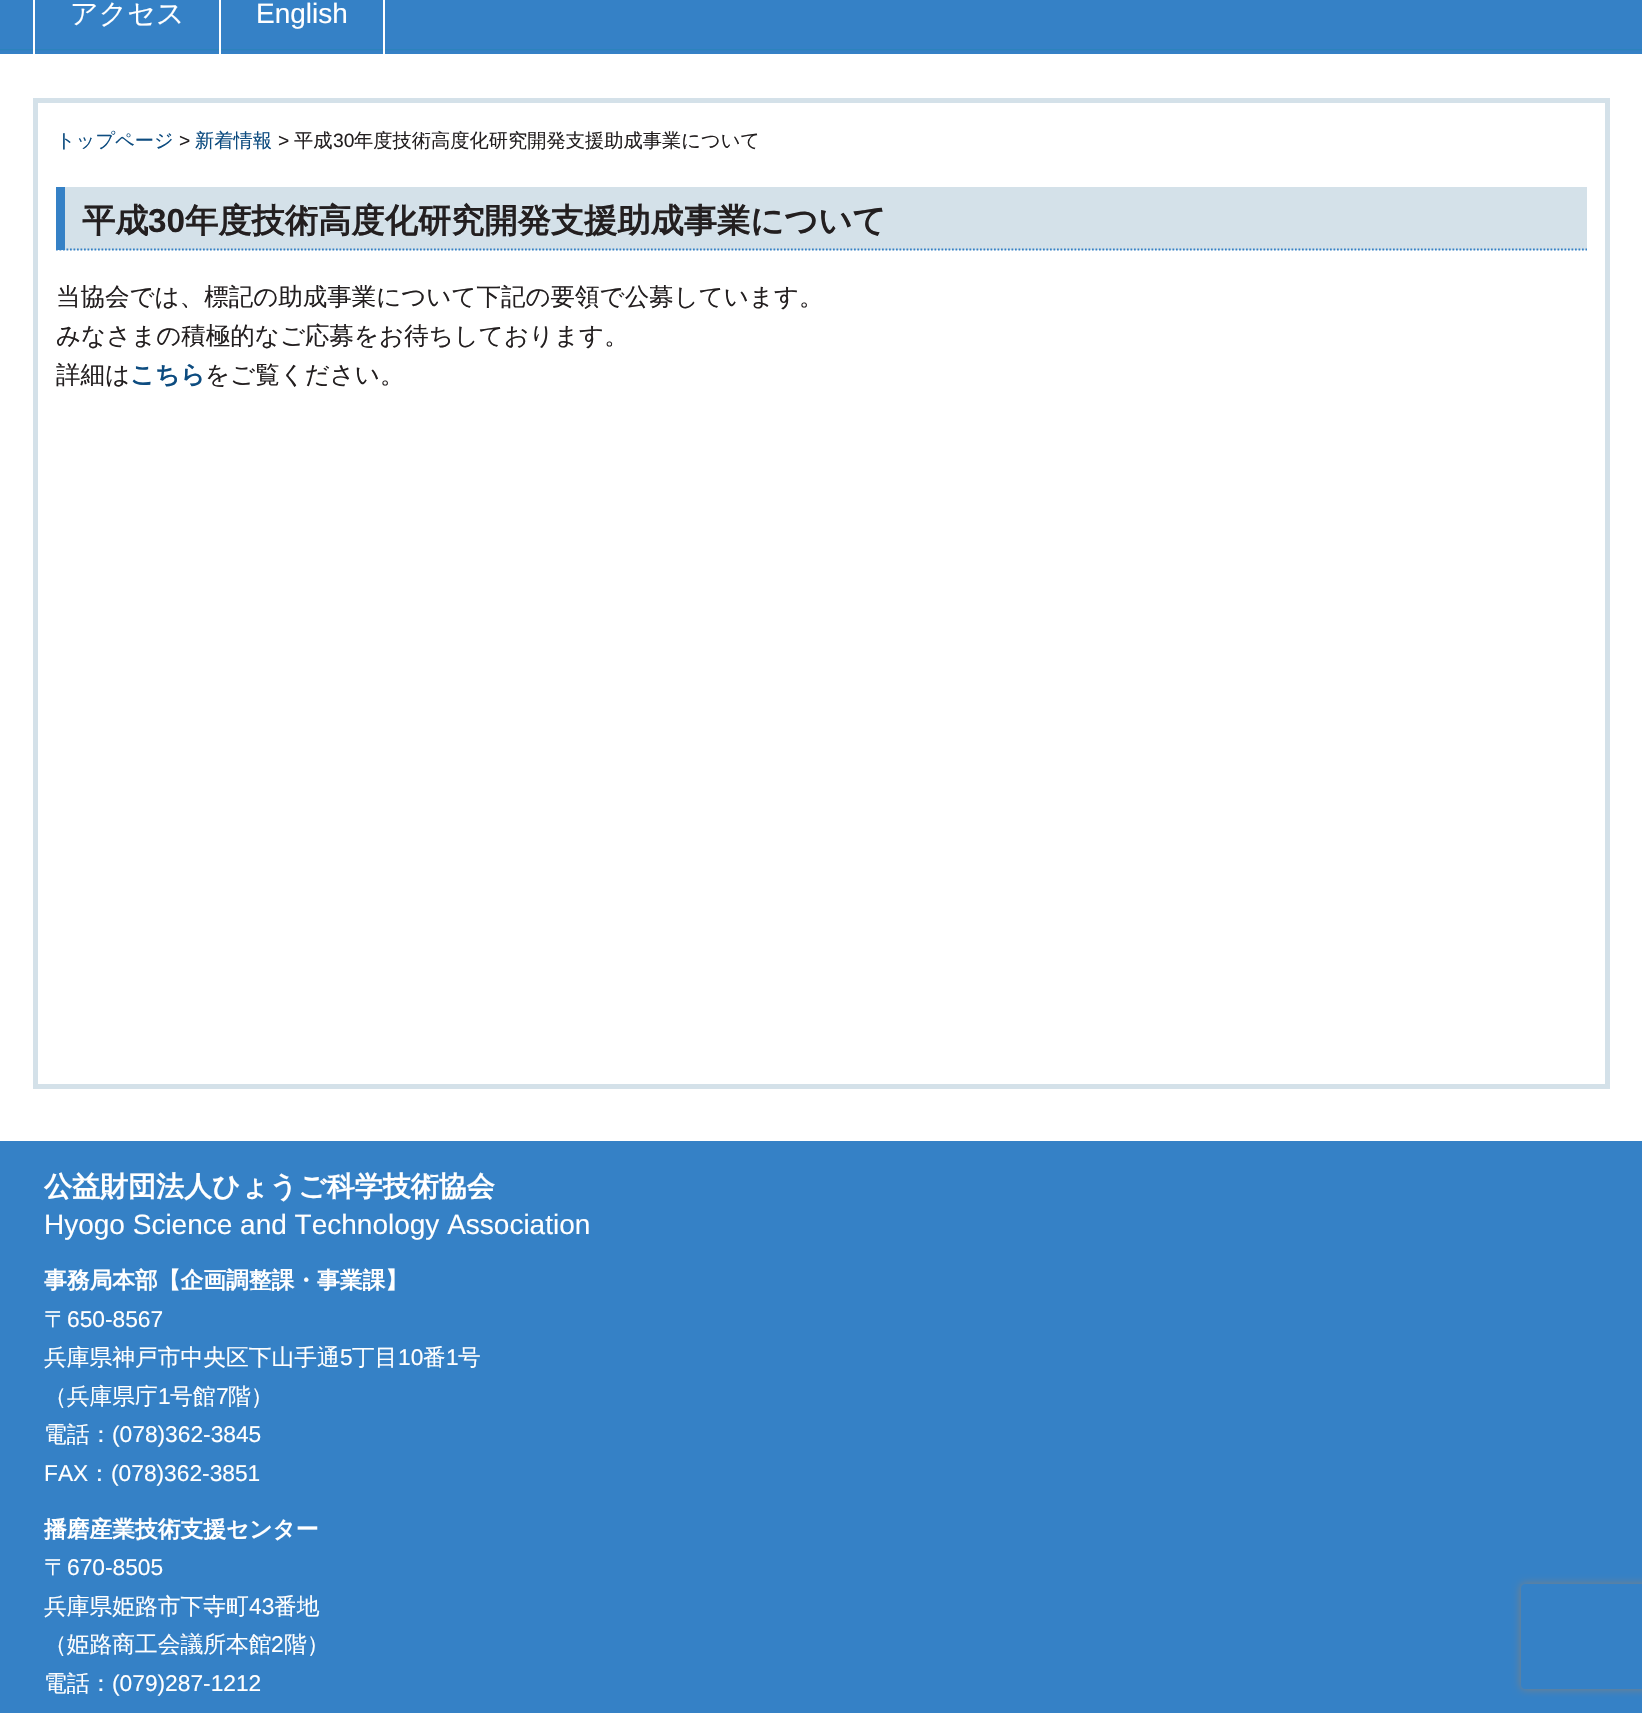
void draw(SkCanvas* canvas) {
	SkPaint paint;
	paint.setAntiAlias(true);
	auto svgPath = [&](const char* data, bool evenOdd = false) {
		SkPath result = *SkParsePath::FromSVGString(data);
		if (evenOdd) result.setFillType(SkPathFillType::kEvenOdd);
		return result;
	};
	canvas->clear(0xffffffff);
	paint.setColor(0xff3581c6);
	canvas->drawRect(SkRect::MakeXYWH(0, 0, 1642, 54), paint);
	canvas->drawImageRect(SkImages::DeferredFromEncodedData(SkData::MakeFromFileName("img1.png")), SkRect::MakeXYWH(0, 49, 1642, 2), SkSamplingOptions());
	paint.setColor(0xffffffff);
	canvas->drawRect(SkRect::MakeXYWH(33, 0, 2, 54), paint);
	canvas->drawRect(SkRect::MakeXYWH(219, 0, 2, 54), paint);
	SkFont f1(fontMgr->matchFamilyStyle("WenQuanYi Zen Hei", SkFontStyle(500, SkFontStyle::kNormal_Width, SkFontStyle::kUpright_Slant)), 28);
	f1.setSubpixel(true);
	canvas->drawString("アクセス", 70, 23, f1, paint);
	canvas->drawRect(SkRect::MakeXYWH(383, 0, 2, 54), paint);
	SkFont f2(fontMgr->matchFamilyStyle("Liberation Sans", SkFontStyle::Normal()), 28);
	f2.setSubpixel(true);
	canvas->drawString("English", 256, 23, f2, paint);
	paint.setStroke(true);
	paint.setStrokeWidth(5);
	paint.setColor(0xffd4e1e9);
	canvas->drawRect(SkRect::MakeXYWH(35.5, 100.5, 1572, 986), paint);
	SkFont f3(fontMgr->matchFamilyStyle("WenQuanYi Zen Hei", SkFontStyle(500, SkFontStyle::kNormal_Width, SkFontStyle::kUpright_Slant)), 19.25);
	f3.setSubpixel(true);
	paint.setStroke(false);
	paint.setColor(0xff0d4c80);
	canvas->drawString("トップページ", 56, 147, f3, paint);
	SkFont f4(fontMgr->matchFamilyStyle("Liberation Sans", SkFontStyle::Normal()), 19.25);
	f4.setSubpixel(true);
	paint.setColor(0xff231f20);
	canvas->drawString(">", 179, 147, f4, paint);
	paint.setColor(0xff0d4c80);
	canvas->drawString("新着情報", 195, 147, f3, paint);
	paint.setColor(0xff231f20);
	canvas->drawString(">", 278, 147, f4, paint);
	canvas->drawString("平成", 294, 147, f3, paint);
	canvas->drawString("30", 333, 147, f4, paint);
	canvas->drawString("年度技術高度化研究開発支援助成事業について", 354, 147, f3, paint);
	paint.setColor(0xffd4e1e9);
	canvas->drawRect(SkRect::MakeXYWH(65, 187, 1522, 63), paint);
	paint.setStroke(true);
	paint.setStrokeWidth(1.8);
	paint.setColor(0xff3581c6);
	paint.setPathEffect(SkDashPathEffect::Make({{1.75f, 1.75f}}, 0));
	canvas->drawPath(svgPath("M56 249.5H1587"), paint);
	paint.setPathEffect(nullptr);
	paint.setStroke(false);
	canvas->drawRect(SkRect::MakeXYWH(56, 187, 9, 63), paint);
	SkFont f5(fontMgr->matchFamilyStyle("WenQuanYi Zen Hei", SkFontStyle::Bold()), 33.25);
	f5.setSubpixel(true);
	paint.setColor(0xff231f20);
	canvas->drawString("平成", 82, 232, f5, paint);
	SkFont f6(fontMgr->matchFamilyStyle("Liberation Sans", SkFontStyle::Bold()), 33.25);
	f6.setSubpixel(true);
	canvas->drawString("30", 148, 232, f6, paint);
	canvas->drawString("年度技術高度化研究開発支援助成事業について", 185, 232, f5, paint);
	SkFont f7(fontMgr->matchFamilyStyle("WenQuanYi Zen Hei", SkFontStyle(500, SkFontStyle::kNormal_Width, SkFontStyle::kUpright_Slant)), 24.5);
	f7.setSubpixel(true);
	canvas->drawString("当協会では、標記の助成事業について下記の要領で公募しています。", 56, 305, f7, paint);
	canvas->drawString("みなさまの積極的なご応募をお待ちしております。", 56, 344, f7, paint);
	canvas->drawString("詳細は", 56, 383, f7, paint);
	SkFont f8(fontMgr->matchFamilyStyle("WenQuanYi Zen Hei", SkFontStyle::Bold()), 24.5);
	f8.setSubpixel(true);
	paint.setColor(0xff0d4c80);
	canvas->drawString("こちら", 130, 383, f8, paint);
	paint.setColor(0xff231f20);
	canvas->drawString("をご覧ください。", 205, 383, f7, paint);
	paint.setColor(0xff3581c6);
	canvas->drawRect(SkRect::MakeXYWH(0, 1141, 1642, 572), paint);
	SkFont f9(fontMgr->matchFamilyStyle("WenQuanYi Zen Hei", SkFontStyle::Bold()), 28);
	f9.setSubpixel(true);
	paint.setColor(0xffffffff);
	canvas->drawString("公益財団法人ひょうご科学技術協会", 44, 1196, f9, paint);
	canvas->drawString("Hyogo Science and Technology Association", 44, 1234, f2, paint);
	SkFont f10(fontMgr->matchFamilyStyle("WenQuanYi Zen Hei", SkFontStyle::Bold()), 22.75);
	f10.setSubpixel(true);
	canvas->drawString("事務局本部【企画調整課・事業課】", 44, 1288, f10, paint);
	SkFont f11(fontMgr->matchFamilyStyle("WenQuanYi Zen Hei", SkFontStyle(500, SkFontStyle::kNormal_Width, SkFontStyle::kUpright_Slant)), 22.75);
	f11.setSubpixel(true);
	canvas->drawString("〒", 44, 1327, f11, paint);
	SkFont f12(fontMgr->matchFamilyStyle("Liberation Sans", SkFontStyle::Normal()), 22.75);
	f12.setSubpixel(true);
	canvas->drawString("650-8567", 67, 1327, f12, paint);
	canvas->drawString("兵庫県神戸市中央区下山手通", 44, 1365, f11, paint);
	canvas->drawString("5", 340, 1365, f12, paint);
	canvas->drawString("丁目", 352, 1365, f11, paint);
	canvas->drawString("10", 398, 1365, f12, paint);
	canvas->drawString("番", 423, 1365, f11, paint);
	canvas->drawString("1", 446, 1365, f12, paint);
	canvas->drawString("号", 458, 1365, f11, paint);
	canvas->drawString("（兵庫県庁", 44, 1404, f11, paint);
	canvas->drawString("1", 158, 1404, f12, paint);
	canvas->drawString("号館", 170, 1404, f11, paint);
	canvas->drawString("7", 216, 1404, f12, paint);
	canvas->drawString("階）", 228, 1404, f11, paint);
	canvas->drawString("電話：", 44, 1442, f11, paint);
	canvas->drawString("(078)362-3845", 112, 1442, f12, paint);
	canvas->drawString("FAX", 44, 1481, f12, paint);
	canvas->drawString("：", 88, 1481, f11, paint);
	canvas->drawString("(078)362-3851", 111, 1481, f12, paint);
	canvas->drawString("播磨産業技術支援センター", 44, 1537, f10, paint);
	canvas->drawString("〒", 44, 1575, f11, paint);
	canvas->drawString("670-8505", 67, 1575, f12, paint);
	canvas->drawString("兵庫県姫路市下寺町", 44, 1614, f11, paint);
	canvas->drawString("43", 249, 1614, f12, paint);
	canvas->drawString("番地", 274, 1614, f11, paint);
	canvas->drawString("（姫路商工会議所本館", 44, 1652, f11, paint);
	canvas->drawString("2", 271, 1652, f12, paint);
	canvas->drawString("階）", 284, 1652, f11, paint);
	canvas->drawString("電話：", 44, 1691, f11, paint);
	canvas->drawString("(079)287-1212", 112, 1691, f12, paint);
	canvas->save();
	canvas->clipPath(svgPath("M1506 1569H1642V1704H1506ZM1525 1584H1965C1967 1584 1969 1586 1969 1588V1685C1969 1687 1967 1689 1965 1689H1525C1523 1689 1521 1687 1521 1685V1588C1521 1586 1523 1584 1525 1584Z", true), true);
	paint.setColor(0xff808080);
	paint.setMaskFilter(SkMaskFilter::MakeBlur(kNormal_SkBlurStyle, 4.5));
	canvas->drawRoundRect(SkRect::MakeXYWH(1521, 1584, 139, 105), 4, 4, paint);
	paint.setMaskFilter(nullptr);
	canvas->restore();
}
